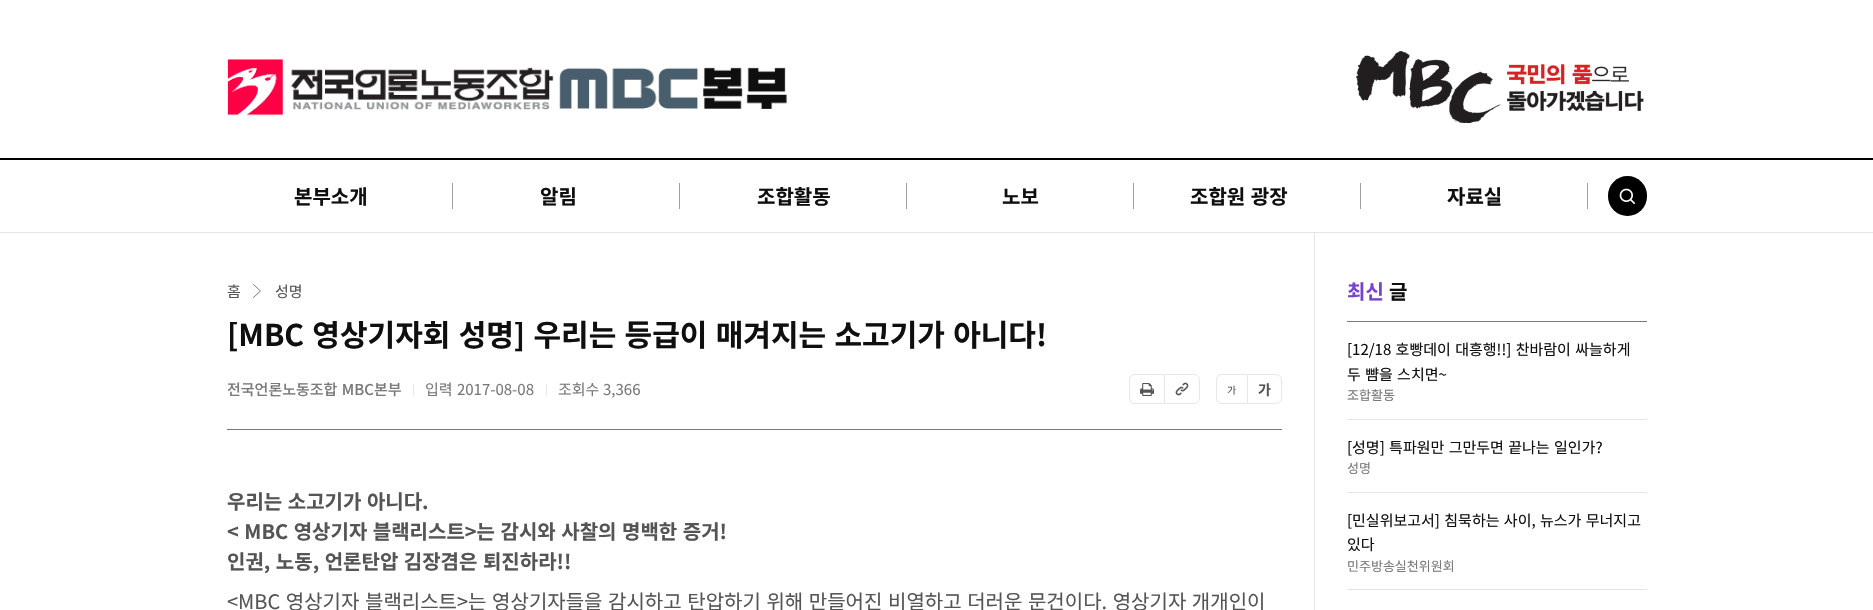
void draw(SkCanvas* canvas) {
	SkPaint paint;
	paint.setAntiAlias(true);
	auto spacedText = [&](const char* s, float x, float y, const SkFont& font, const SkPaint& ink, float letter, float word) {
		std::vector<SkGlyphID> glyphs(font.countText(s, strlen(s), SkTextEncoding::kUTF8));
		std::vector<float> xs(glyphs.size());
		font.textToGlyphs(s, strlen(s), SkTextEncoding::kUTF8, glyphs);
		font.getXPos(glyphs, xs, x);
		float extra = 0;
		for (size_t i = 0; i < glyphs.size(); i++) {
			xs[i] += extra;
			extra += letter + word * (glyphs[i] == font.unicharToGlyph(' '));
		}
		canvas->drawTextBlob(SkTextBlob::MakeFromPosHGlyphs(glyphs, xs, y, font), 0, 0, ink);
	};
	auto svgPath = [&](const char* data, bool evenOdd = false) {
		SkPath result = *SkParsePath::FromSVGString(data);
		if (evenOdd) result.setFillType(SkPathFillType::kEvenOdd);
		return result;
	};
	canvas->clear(0xffffffff);
	canvas->drawImageRect(SkImages::DeferredFromEncodedData(SkData::MakeFromFileName("img1.png")), SkRect::MakeXYWH(227, 59, 560, 57), SkSamplingOptions());
	canvas->drawImageRect(SkImages::DeferredFromEncodedData(SkData::MakeFromFileName("img2.png")), SkRect::MakeXYWH(1356, 51, 288, 72), SkSamplingOptions());
	paint.setColor(0xff000000);
	canvas->drawRect(SkRect::MakeXYWH(0, 158, 1873, 2), paint);
	paint.setColor(0xffe5e5e5);
	canvas->drawRect(SkRect::MakeXYWH(0, 232, 1873, 1), paint);
	SkFont f1(fontMgr->matchFamilyStyle("Noto Sans KR", SkFontStyle::Bold()), 20);
	f1.setSubpixel(true);
	paint.setColor(0xff0f0f0f);
	canvas->drawString("본부소개", 294, 204, f1, paint);
	paint.setColor(0xff9f9f9f);
	canvas->drawRect(SkRect::MakeXYWH(452, 183, 1, 26), paint);
	paint.setColor(0xff0f0f0f);
	canvas->drawString("알림", 540, 204, f1, paint);
	paint.setColor(0xff9f9f9f);
	canvas->drawRect(SkRect::MakeXYWH(679, 183, 1, 26), paint);
	paint.setColor(0xff0f0f0f);
	canvas->drawString("조합활동", 757, 204, f1, paint);
	paint.setColor(0xff9f9f9f);
	canvas->drawRect(SkRect::MakeXYWH(906, 183, 1, 26), paint);
	paint.setColor(0xff0f0f0f);
	canvas->drawString("노보", 1002, 204, f1, paint);
	paint.setColor(0xff9f9f9f);
	canvas->drawRect(SkRect::MakeXYWH(1133, 183, 1, 26), paint);
	paint.setColor(0xff0f0f0f);
	spacedText("조합원 광장", 1190, 204, f1, paint, 0, 1);
	paint.setColor(0xff9f9f9f);
	canvas->drawRect(SkRect::MakeXYWH(1360, 183, 1, 26), paint);
	paint.setColor(0xff0f0f0f);
	canvas->drawString("자료실", 1447, 204, f1, paint);
	paint.setColor(0xff9f9f9f);
	canvas->drawRect(SkRect::MakeXYWH(1587, 183, 1, 26), paint);
	paint.setColor(0xff000000);
	canvas->drawRoundRect(SkRect::MakeXYWH(1608, 176, 39, 40), 19.5, 19.5, paint);
	canvas->drawImageRect(SkImages::DeferredFromEncodedData(SkData::MakeFromFileName("img3.png")), SkRect::MakeXYWH(1619, 188, 17, 17), SkSamplingOptions());
	paint.setColor(0xffe5e5e5);
	canvas->drawRect(SkRect::MakeXYWH(1314, 233, 1, 377), paint);
	SkFont f2(fontMgr->matchFamilyStyle("Noto Sans KR", SkFontStyle::Normal()), 15);
	f2.setSubpixel(true);
	paint.setColor(0xff555555);
	canvas->drawString("홈", 227, 297, f2, paint);
	paint.setStroke(true);
	paint.setStrokeWidth(1);
	paint.setStrokeCap(SkPaint::kRound_Cap);
	paint.setStrokeJoin(SkPaint::kRound_Join);
	paint.setColor(0xff7a7878);
	canvas->drawPath(svgPath("M253.5 284.5L260.5 291L253.5 297.5"), paint);
	paint.setStroke(false);
	paint.setColor(0xff555555);
	canvas->drawString("성명", 275, 297, f2, paint);
	paint.setColor(0xff7a7878);
	canvas->drawRect(SkRect::MakeXYWH(227, 429, 1055, 1), paint);
	SkFont f3(fontMgr->matchFamilyStyle("Noto Sans KR", SkFontStyle::Bold()), 30);
	f3.setSubpixel(true);
	paint.setColor(0xff0f0f0f);
	spacedText("[MBC 영상기자회 성명] 우리는 등급이 매겨지는 소고기가 아니다!", 227, 346, f3, paint, 0, 1.5);
	SkFont f4(fontMgr->matchFamilyStyle("Noto Sans KR", SkFontStyle(500, SkFontStyle::kNormal_Width, SkFontStyle::kUpright_Slant)), 15);
	f4.setSubpixel(true);
	paint.setColor(0xff7a7878);
	spacedText("전국언론노동조합 MBC본부", 227, 395, f4, paint, 0, 1);
	paint.setColor(0xffe5e5e5);
	canvas->drawRect(SkRect::MakeXYWH(413, 384, 1, 11), paint);
	paint.setColor(0xff7a7878);
	spacedText("입력 2017-08-08", 425, 395, f2, paint, 0, 1);
	paint.setColor(0xffe5e5e5);
	canvas->drawRect(SkRect::MakeXYWH(546, 384, 1, 11), paint);
	paint.setColor(0xff7a7878);
	canvas->drawString("조회수", 558, 395, f2, paint);
	canvas->drawString("3,366", 603, 395, f2, paint);
	paint.setColor(0xffe6e7e8);
	canvas->drawPath(svgPath("M1135 374H1164V404H1135C1131.5 404 1129 401.5 1129 398V380C1129 376.5 1131.5 374 1135 374ZM1135 375H1164V403H1135C1132 403 1130 401 1130 398V380C1130 377 1132 375 1135 375Z", true), paint);
	canvas->drawImageRect(SkImages::DeferredFromEncodedData(SkData::MakeFromFileName("img4.png")), SkRect::MakeXYWH(1140, 383, 14, 13), SkSamplingOptions());
	paint.setStroke(true);
	paint.setStrokeCap(SkPaint::kButt_Cap);
	paint.setStrokeJoin(SkPaint::kMiter_Join);
	canvas->drawPath(svgPath("M1164.5 374.5H1194C1197 374.5 1199.5 377 1199.5 380V398C1199.5 401 1197 403.5 1194 403.5H1164.5Z"), paint);
	canvas->drawImageRect(SkImages::DeferredFromEncodedData(SkData::MakeFromFileName("img5.png")), SkRect::MakeXYWH(1175, 382, 14, 14), SkSamplingOptions());
	paint.setStroke(false);
	canvas->drawPath(svgPath("M1222 374H1247V404H1222C1218.5 404 1216 401.5 1216 398V380C1216 376.5 1218.5 374 1222 374ZM1222 375H1247V403H1222C1219 403 1217 401 1217 398V380C1217 377 1219 375 1222 375Z", true), paint);
	SkFont f5(fontMgr->matchFamilyStyle("Noto Sans KR", SkFontStyle::Normal()), 10);
	f5.setSubpixel(true);
	paint.setColor(0xff555555);
	canvas->drawString("가", 1227, 394, f5, paint);
	paint.setStroke(true);
	paint.setColor(0xffe6e7e8);
	canvas->drawPath(svgPath("M1247.5 374.5H1276C1279 374.5 1281.5 377 1281.5 380V398C1281.5 401 1279 403.5 1276 403.5H1247.5Z"), paint);
	SkFont f6(fontMgr->matchFamilyStyle("Noto Sans KR", SkFontStyle::Bold()), 14);
	f6.setSubpixel(true);
	paint.setStroke(false);
	paint.setColor(0xff555555);
	canvas->drawString("가", 1258, 395, f6, paint);
	spacedText("우리는 소고기가 아니다.", 227, 509, f1, paint, 0, 1);
	spacedText("< MBC 영상기자 블랙리스트>는 감시와 사찰의 명백한 증거!", 227, 539, f1, paint, 0, 1);
	spacedText("인권, 노동, 언론탄압 김장겸은 퇴진하라!!", 227, 569, f1, paint, 0, 1);
	SkFont f7(fontMgr->matchFamilyStyle("Noto Sans KR", SkFontStyle::Normal()), 20);
	f7.setSubpixel(true);
	spacedText("<MBC 영상기자 블랙리스트>는 영상기자들을 감시하고 탄압하기 위해 만들어진 비열하고 더러운 문건이다. 영상기자 개개인이", 227, 609, f7, paint, 0, 1.1);
	paint.setColor(0xff7a7878);
	canvas->drawRect(SkRect::MakeXYWH(1347, 321, 300, 1), paint);
	paint.setColor(0xff7742cc);
	canvas->drawString("최신", 1347, 299, f1, paint);
	paint.setColor(0xff0f0f0f);
	canvas->drawString("글", 1389, 299, f1, paint);
	paint.setColor(0xffe5e5e5);
	canvas->drawRect(SkRect::MakeXYWH(1347, 419, 300, 1), paint);
	paint.setColor(0xff0f0f0f);
	spacedText("[12/18 호빵데이 대흥행!!] 찬바람이 싸늘하게", 1347, 355, f2, paint, 0, 1);
	spacedText("두 뺨을 스치면~", 1347, 380, f2, paint, 0, 1);
	SkFont f8(fontMgr->matchFamilyStyle("Noto Sans KR", SkFontStyle::Normal()), 13);
	f8.setSubpixel(true);
	paint.setColor(0xff7a7878);
	canvas->drawString("조합활동", 1347, 400, f8, paint);
	paint.setColor(0xffe5e5e5);
	canvas->drawRect(SkRect::MakeXYWH(1347, 492, 300, 1), paint);
	paint.setColor(0xff0f0f0f);
	spacedText("[성명] 특파원만 그만두면 끝나는 일인가?", 1347, 453, f2, paint, 0, 1);
	paint.setColor(0xff7a7878);
	canvas->drawString("성명", 1347, 473, f8, paint);
	paint.setColor(0xffe5e5e5);
	canvas->drawRect(SkRect::MakeXYWH(1347, 589, 300, 1), paint);
	paint.setColor(0xff0f0f0f);
	spacedText("[민실위보고서] 침묵하는 사이, 뉴스가 무너지고", 1347, 526, f2, paint, 0, 1);
	canvas->drawString("있다", 1347, 550, f2, paint);
	paint.setColor(0xff7a7878);
	canvas->drawString("민주방송실천위원회", 1347, 571, f8, paint);
}
